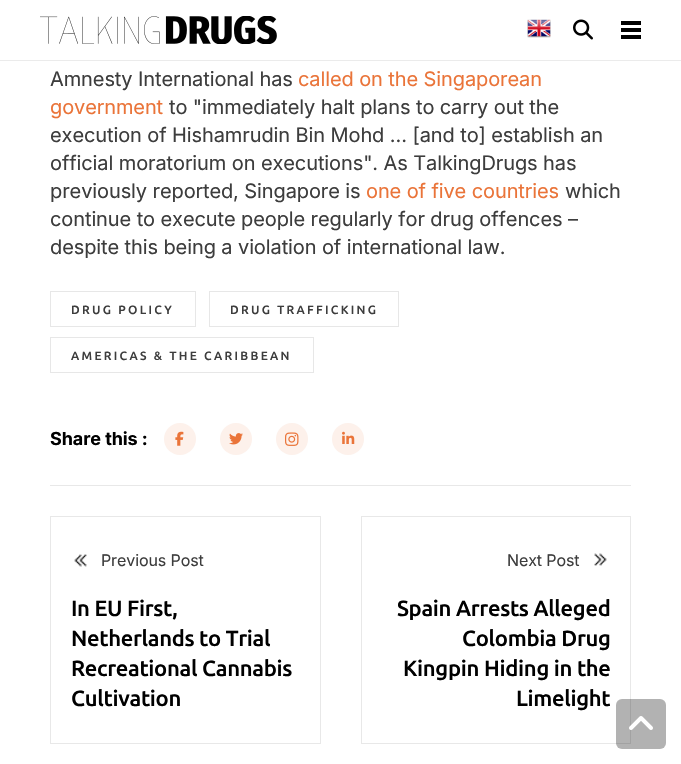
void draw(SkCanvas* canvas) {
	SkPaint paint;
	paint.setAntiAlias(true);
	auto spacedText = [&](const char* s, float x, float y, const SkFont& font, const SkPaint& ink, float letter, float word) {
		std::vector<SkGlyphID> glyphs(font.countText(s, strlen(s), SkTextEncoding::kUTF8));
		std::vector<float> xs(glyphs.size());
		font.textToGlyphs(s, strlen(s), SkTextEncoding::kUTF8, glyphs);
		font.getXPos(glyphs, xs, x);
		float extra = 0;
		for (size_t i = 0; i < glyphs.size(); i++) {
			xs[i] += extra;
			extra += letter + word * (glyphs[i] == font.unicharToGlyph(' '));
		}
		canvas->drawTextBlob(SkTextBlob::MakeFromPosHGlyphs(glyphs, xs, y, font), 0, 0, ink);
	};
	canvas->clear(0xffffffff);
	paint.setColor(0xffebebeb);
	canvas->drawRect(SkRect::MakeXYWH(0, 60, 681, 1), paint);
	canvas->drawImageRect(SkImages::DeferredFromEncodedData(SkData::MakeFromFileName("img1.png")), SkRect::MakeXYWH(40, 16, 237, 28), SkSamplingOptions());
	canvas->drawImageRect(SkImages::DeferredFromEncodedData(SkData::MakeFromFileName("img2.png")), SkRect::MakeXYWH(527, 19, 24, 19), SkSamplingOptions());
	canvas->drawImageRect(SkImages::DeferredFromEncodedData(SkData::MakeFromFileName("img3.png")), SkRect::MakeXYWH(573, 19, 20, 21), SkSamplingOptions());
	paint.setColor(0xff000000);
	canvas->drawRect(SkRect::MakeXYWH(621, 28, 20, 4), paint);
	canvas->drawRect(SkRect::MakeXYWH(621, 21, 20, 4), paint);
	canvas->drawRect(SkRect::MakeXYWH(621, 35, 20, 4), paint);
	SkFont f1(fontMgr->matchFamilyStyle("Inter", SkFontStyle::Normal()), 20);
	f1.setSubpixel(true);
	paint.setColor(0xff3d3d3d);
	spacedText("Amnesty International has", 50, 86, f1, paint, -0.1, 0);
	paint.setColor(0xffea7439);
	spacedText("called on the Singaporean", 298, 86, f1, paint, -0.1, 0);
	spacedText("government", 50, 114, f1, paint, -0.1, 0);
	paint.setColor(0xff3d3d3d);
	spacedText("to \"immediately halt plans to carry out the", 169, 114, f1, paint, -0.1, 0);
	spacedText("execution of Hishamrudin Bin Mohd … [and to] establish an", 50, 142, f1, paint, -0.1, 0);
	spacedText("official moratorium on executions\". As TalkingDrugs has", 50, 170, f1, paint, -0.1, 0);
	spacedText("previously reported, Singapore is", 50, 198, f1, paint, -0.1, 0);
	paint.setColor(0xffea7439);
	spacedText("one of five countries", 366, 198, f1, paint, -0.1, 0);
	paint.setColor(0xff3d3d3d);
	spacedText("which", 565, 198, f1, paint, -0.1, 0);
	spacedText("continue to execute people regularly for drug offences –", 50, 226, f1, paint, -0.1, 0);
	spacedText("despite this being a violation of international law.", 50, 254, f1, paint, -0.1, 0);
	paint.setStroke(true);
	paint.setStrokeWidth(1);
	paint.setColor(0xffe7e7e7);
	canvas->drawRect(SkRect::MakeXYWH(50.5, 291.5, 145, 35), paint);
	SkFont f2(fontMgr->matchFamilyStyle("Ubuntu", SkFontStyle(500, SkFontStyle::kNormal_Width, SkFontStyle::kUpright_Slant)), 12);
	f2.setSubpixel(true);
	paint.setStroke(false);
	paint.setColor(0xff3d3d3d);
	spacedText("DRUG POLICY", 71, 314, f2, paint, 2.3, 0);
	paint.setStroke(true);
	paint.setColor(0xffe7e7e7);
	canvas->drawRect(SkRect::MakeXYWH(209.5, 291.5, 189, 35), paint);
	paint.setStroke(false);
	paint.setColor(0xff3d3d3d);
	spacedText("DRUG TRAFFICKING", 230, 314, f2, paint, 2.3, 0);
	paint.setStroke(true);
	paint.setColor(0xffe7e7e7);
	canvas->drawRect(SkRect::MakeXYWH(50.5, 337.5, 263, 35), paint);
	paint.setStroke(false);
	paint.setColor(0xff3d3d3d);
	spacedText("AMERICAS & THE CARIBBEAN", 71, 360, f2, paint, 2.3, 0);
	paint.setColor(0xffe8e8e8);
	canvas->drawRect(SkRect::MakeXYWH(50, 485, 581, 1), paint);
	SkFont f3(fontMgr->matchFamilyStyle("Inter", SkFontStyle::Bold()), 18);
	f3.setSubpixel(true);
	paint.setColor(0xff000000);
	spacedText("Share this :", 50, 445, f3, paint, -0.1, 0);
	paint.setColor(0xfffdf1eb);
	canvas->drawCircle(180, 439, 16, paint);
	canvas->drawImageRect(SkImages::DeferredFromEncodedData(SkData::MakeFromFileName("img4.png")), SkRect::MakeXYWH(175, 431, 9, 15), SkSamplingOptions());
	canvas->drawCircle(236, 439, 16, paint);
	canvas->drawImageRect(SkImages::DeferredFromEncodedData(SkData::MakeFromFileName("img5.png")), SkRect::MakeXYWH(229, 433, 14, 12), SkSamplingOptions());
	canvas->drawCircle(292, 439, 16, paint);
	canvas->drawImageRect(SkImages::DeferredFromEncodedData(SkData::MakeFromFileName("img6.png")), SkRect::MakeXYWH(285, 432, 14, 14), SkSamplingOptions());
	canvas->drawCircle(348, 439, 16, paint);
	canvas->drawImageRect(SkImages::DeferredFromEncodedData(SkData::MakeFromFileName("img7.png")), SkRect::MakeXYWH(342, 431, 13, 13), SkSamplingOptions());
	paint.setStroke(true);
	paint.setColor(0xffe8e8e8);
	canvas->drawRect(SkRect::MakeXYWH(50.5, 516.5, 270, 227), paint);
	canvas->drawImageRect(SkImages::DeferredFromEncodedData(SkData::MakeFromFileName("img8.png")), SkRect::MakeXYWH(74, 554, 13, 13), SkSamplingOptions());
	SkFont f4(fontMgr->matchFamilyStyle("Inter", SkFontStyle::Normal()), 16);
	f4.setSubpixel(true);
	paint.setStroke(false);
	paint.setColor(0xff3d3d3d);
	spacedText("Previous Post", 101, 566, f4, paint, -0.1, 0);
	SkFont f5(fontMgr->matchFamilyStyle("Ubuntu", SkFontStyle(500, SkFontStyle::kNormal_Width, SkFontStyle::kUpright_Slant)), 22);
	f5.setSubpixel(true);
	paint.setColor(0xff000000);
	spacedText("In EU First,", 71, 616, f5, paint, -0.3, 0);
	spacedText("Netherlands to Trial", 71, 646, f5, paint, -0.3, 0);
	spacedText("Recreational Cannabis", 71, 676, f5, paint, -0.3, 0);
	spacedText("Cultivation", 71, 706, f5, paint, -0.3, 0);
	paint.setStroke(true);
	paint.setColor(0xffe8e8e8);
	canvas->drawRect(SkRect::MakeXYWH(361.5, 516.5, 269, 227), paint);
	paint.setStroke(false);
	paint.setColor(0xff3d3d3d);
	spacedText("Next Post", 507, 566, f4, paint, -0.1, 0);
	canvas->drawImageRect(SkImages::DeferredFromEncodedData(SkData::MakeFromFileName("img9.png")), SkRect::MakeXYWH(594, 553, 13, 13), SkSamplingOptions());
	paint.setColor(0xff000000);
	spacedText("Spain Arrests Alleged", 397, 616, f5, paint, -0.3, 0);
	spacedText("Colombia Drug", 462, 646, f5, paint, -0.3, 0);
	spacedText("Kingpin Hiding in the", 403, 676, f5, paint, -0.3, 0);
	spacedText("Limelight", 516, 706, f5, paint, -0.3, 0);
	paint.setColor(0x4d000000);
	canvas->drawRoundRect(SkRect::MakeXYWH(616, 699, 50, 50), 6, 6, paint);
	canvas->drawImageRect(SkImages::DeferredFromEncodedData(SkData::MakeFromFileName("img10.png")), SkRect::MakeXYWH(629, 716, 24, 14), SkSamplingOptions());
}
